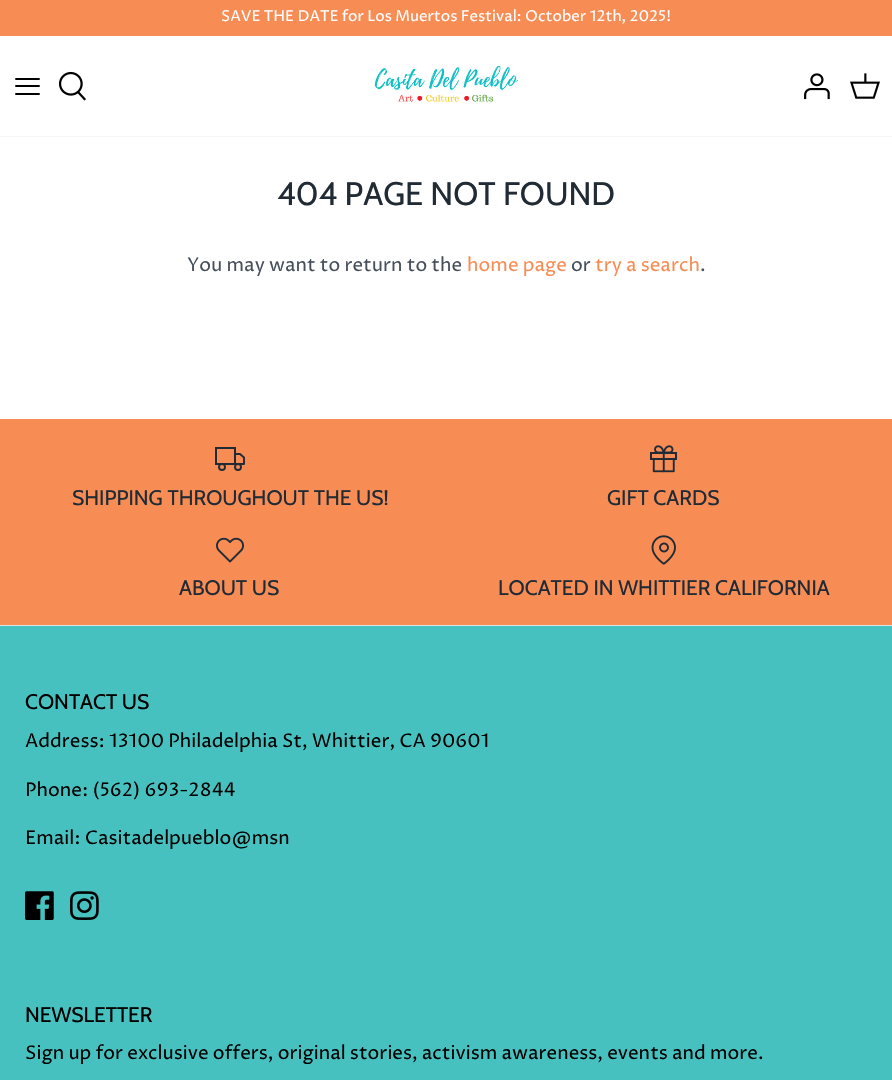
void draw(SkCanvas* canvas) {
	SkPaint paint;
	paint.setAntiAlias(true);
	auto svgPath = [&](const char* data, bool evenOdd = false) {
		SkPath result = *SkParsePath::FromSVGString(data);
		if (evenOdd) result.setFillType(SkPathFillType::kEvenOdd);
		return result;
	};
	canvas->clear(0xffffffff);
	paint.setColor(0xfff78d54);
	canvas->drawRect(SkRect::MakeXYWH(0, 0, 892, 36), paint);
	SkFont f1(fontMgr->matchFamilyStyle("Proza Libre", SkFontStyle::Normal()), 15);
	f1.setSubpixel(true);
	paint.setColor(0xffffffff);
	canvas->drawString("SAVE THE DATE for Los Muertos Festival: October 12th, 2025!", 221, 21, f1, paint);
	paint.setColor(0xfff4f6f8);
	canvas->drawRect(SkRect::MakeXYWH(0, 136, 892, 1), paint);
	paint.setStroke(true);
	paint.setStrokeWidth(1.9);
	paint.setStrokeCap(SkPaint::kRound_Cap);
	paint.setStrokeJoin(SkPaint::kRound_Join);
	paint.setColor(0xff000000);
	canvas->drawPath(svgPath("M16 86H39M16 79H39M16 94H39"), paint);
	canvas->drawImageRect(SkImages::DeferredFromEncodedData(SkData::MakeFromFileName("img1.png")), SkRect::MakeXYWH(58, 71, 28, 30), SkSamplingOptions());
	canvas->drawImageRect(SkImages::DeferredFromEncodedData(SkData::MakeFromFileName("img2.png")), SkRect::MakeXYWH(374, 65, 144, 38), SkSamplingOptions());
	canvas->drawImageRect(SkImages::DeferredFromEncodedData(SkData::MakeFromFileName("img3.png")), SkRect::MakeXYWH(804, 73, 26, 27), SkSamplingOptions());
	canvas->drawImageRect(SkImages::DeferredFromEncodedData(SkData::MakeFromFileName("img4.png")), SkRect::MakeXYWH(850, 73, 30, 26), SkSamplingOptions());
	SkFont f2(fontMgr->matchFamilyStyle("Cabin", SkFontStyle::Normal()), 32.5);
	f2.setSubpixel(true);
	paint.setStroke(false);
	paint.setColor(0xff212b36);
	canvas->drawString("404 PAGE NOT FOUND", 277, 205, f2, paint);
	SkFont f3(fontMgr->matchFamilyStyle("Proza Libre", SkFontStyle::Normal()), 18.75);
	f3.setSubpixel(true);
	paint.setColor(0xff454f5b);
	canvas->drawString("You may want to return to the", 187, 271, f3, paint);
	paint.setColor(0xfff78d54);
	canvas->drawString("home page", 467, 271, f3, paint);
	paint.setColor(0xff454f5b);
	canvas->drawString("or", 571, 271, f3, paint);
	paint.setColor(0xfff78d54);
	canvas->drawString("try a search", 595, 271, f3, paint);
	paint.setColor(0xff454f5b);
	canvas->drawString(".", 700, 271, f3, paint);
	paint.setColor(0xff47c1bf);
	canvas->drawRect(SkRect::MakeXYWH(0, 626, 892, 454), paint);
	paint.setColor(0xfff78d54);
	canvas->drawRect(SkRect::MakeXYWH(0, 419, 892, 206), paint);
	paint.setStroke(true);
	paint.setStrokeWidth(2);
	paint.setStrokeCap(SkPaint::kButt_Cap);
	paint.setStrokeJoin(SkPaint::kMiter_Join);
	paint.setColor(0xff212b36);
	canvas->drawRect(SkRect::MakeXYWH(216, 448, 19, 16), paint);
	paint.setStrokeWidth(1.9);
	paint.setStrokeCap(SkPaint::kRound_Cap);
	paint.setStrokeJoin(SkPaint::kRound_Join);
	canvas->drawPath(svgPath("M235 454H240L244 457.5V464H235Z"), paint);
	paint.setStrokeCap(SkPaint::kButt_Cap);
	paint.setStrokeJoin(SkPaint::kMiter_Join);
	canvas->drawCircle(222, 467, 3, paint);
	canvas->drawCircle(238, 467, 3, paint);
	SkFont f4(fontMgr->matchFamilyStyle("Cabin", SkFontStyle::Normal()), 21);
	f4.setSubpixel(true);
	paint.setStroke(false);
	canvas->drawString("SHIPPING THROUGHOUT THE US!", 72, 505, f4, paint);
	canvas->drawImageRect(SkImages::DeferredFromEncodedData(SkData::MakeFromFileName("img5.png")), SkRect::MakeXYWH(650, 445, 27, 28), SkSamplingOptions());
	canvas->drawString("GIFT CARDS", 607, 505, f4, paint);
	canvas->drawImageRect(SkImages::DeferredFromEncodedData(SkData::MakeFromFileName("img6.png")), SkRect::MakeXYWH(216, 537, 28, 26), SkSamplingOptions());
	canvas->drawString("ABOUT US", 179, 595, f4, paint);
	canvas->drawImageRect(SkImages::DeferredFromEncodedData(SkData::MakeFromFileName("img7.png")), SkRect::MakeXYWH(651, 535, 25, 30), SkSamplingOptions());
	canvas->drawString("LOCATED IN WHITTIER CALIFORNIA", 498, 595, f4, paint);
	paint.setColor(0xffdfe3e8);
	canvas->drawRect(SkRect::MakeXYWH(0, 625, 892, 1), paint);
	paint.setColor(0xff000000);
	canvas->drawString("CONTACT US", 25, 709, f4, paint);
	canvas->drawString("Address: 13100 Philadelphia St, Whittier, CA 90601", 25, 747, f3, paint);
	canvas->drawString("Phone: (562) 693-2844", 25, 796, f3, paint);
	canvas->drawString("Email: Casitadelpueblo@msn", 25, 844, f3, paint);
	canvas->drawImageRect(SkImages::DeferredFromEncodedData(SkData::MakeFromFileName("img8.png")), SkRect::MakeXYWH(25, 891, 29, 29), SkSamplingOptions());
	canvas->drawImageRect(SkImages::DeferredFromEncodedData(SkData::MakeFromFileName("img9.png")), SkRect::MakeXYWH(70, 891, 29, 29), SkSamplingOptions());
	canvas->drawString("NEWSLETTER", 25, 1022, f4, paint);
	canvas->drawString("Sign up for exclusive offers, original stories, activism awareness, events and more.", 25, 1059, f3, paint);
}
